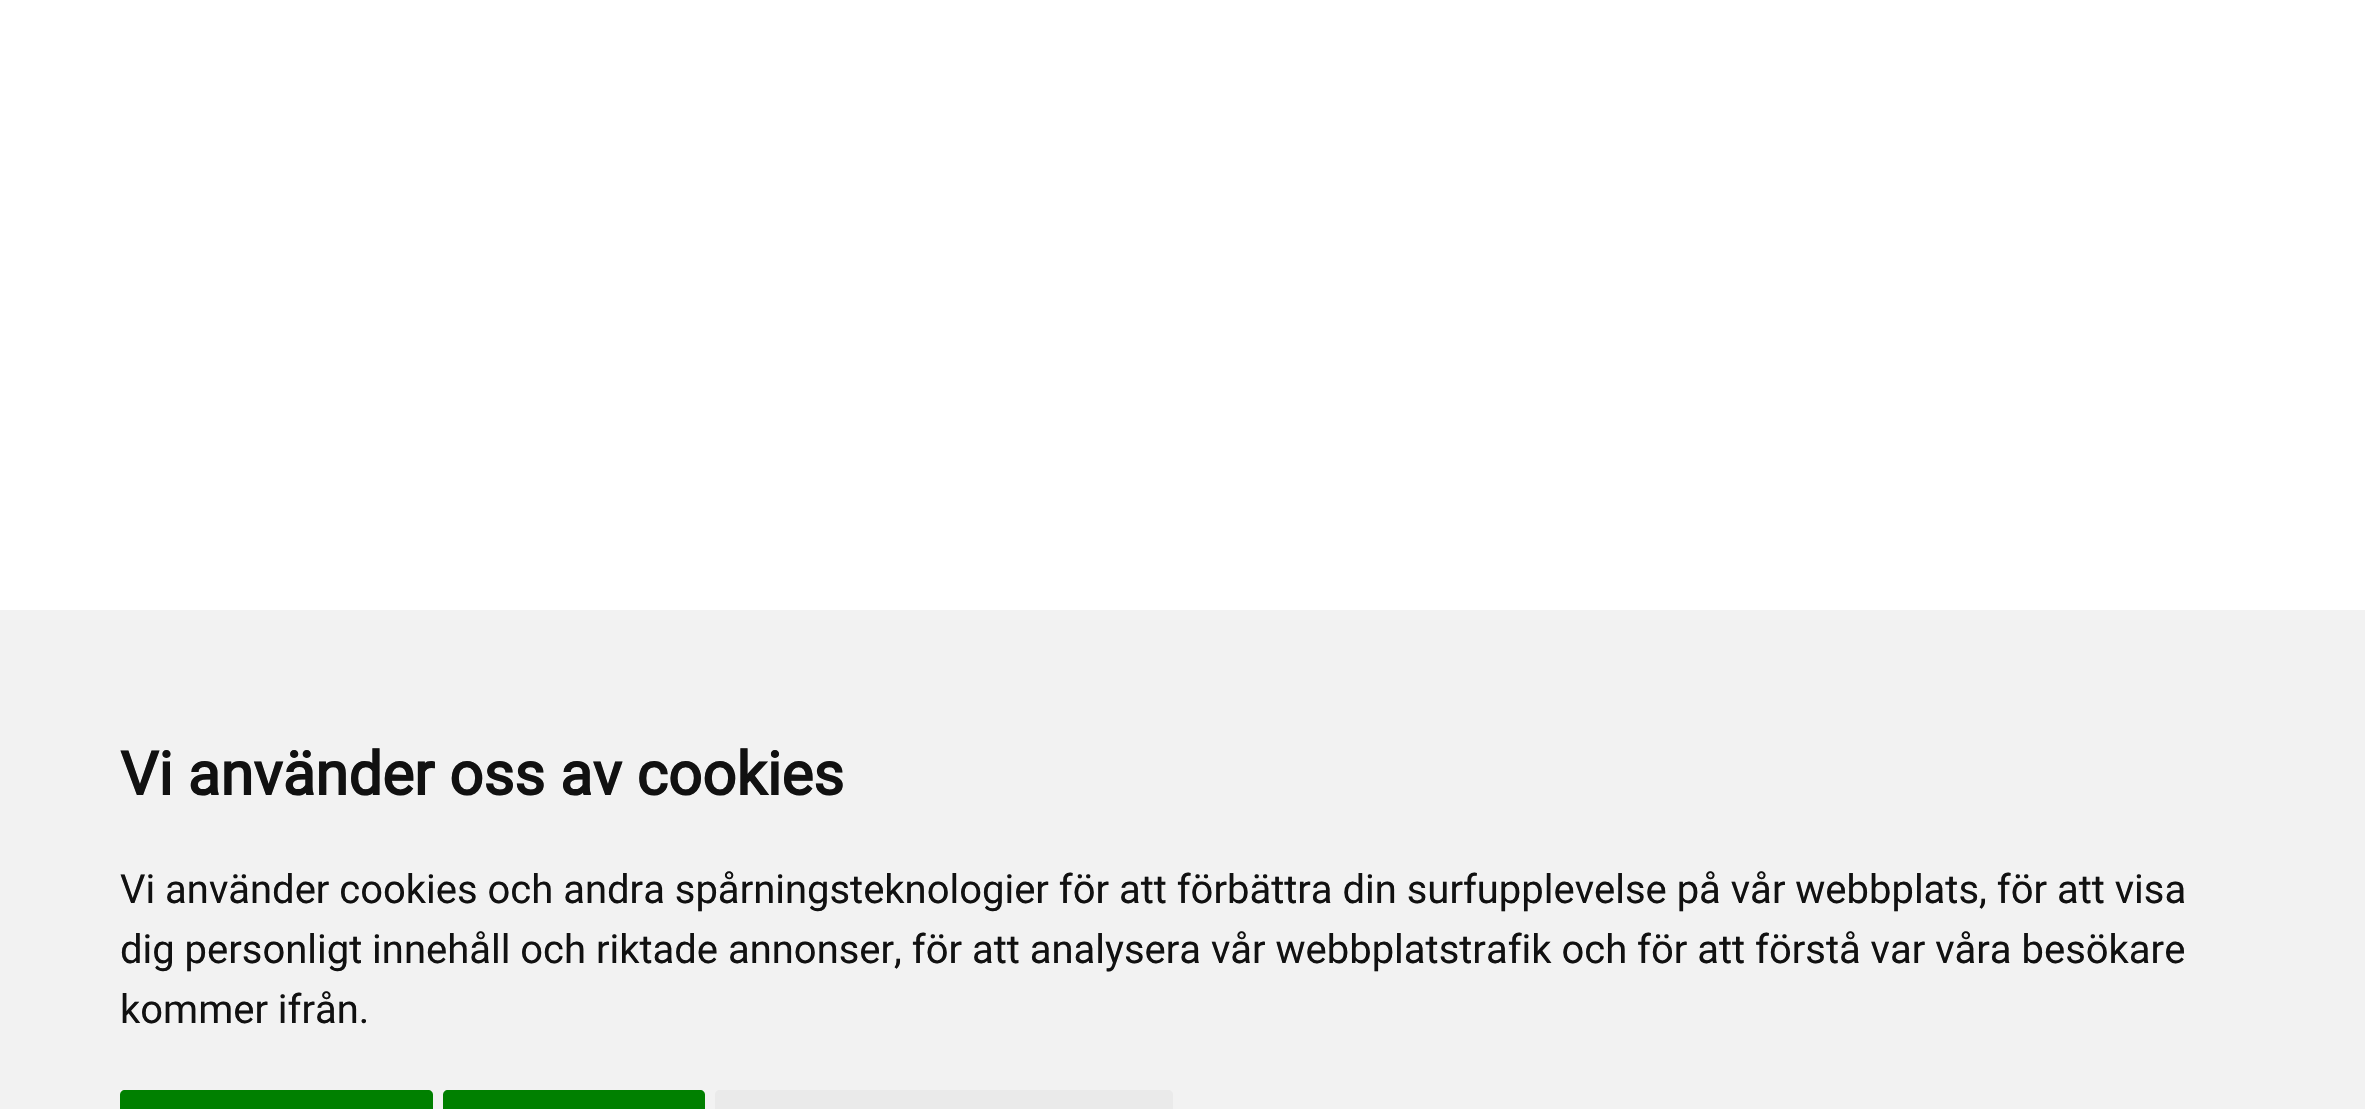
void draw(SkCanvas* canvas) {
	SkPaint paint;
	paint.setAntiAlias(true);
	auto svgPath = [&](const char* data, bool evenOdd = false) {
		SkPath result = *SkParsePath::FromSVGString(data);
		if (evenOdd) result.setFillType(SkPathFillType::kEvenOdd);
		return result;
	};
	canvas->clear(0xffffffff);
	paint.setColor(0xfff2f2f2);
	canvas->drawRect(SkRect::MakeXYWH(0, 610, 2365, 499), paint);
	SkFont f1(fontMgr->matchFamilyStyle("Roboto", SkFontStyle::Bold()), 60);
	f1.setSubpixel(true);
	paint.setColor(0xff111111);
	canvas->drawString("Vi använder oss av cookies", 120, 795, f1, paint);
	SkFont f2(fontMgr->matchFamilyStyle("Roboto", SkFontStyle::Normal()), 40);
	f2.setSubpixel(true);
	canvas->drawString("Vi använder cookies och andra spårningsteknologier för att förbättra din surfupplevelse på vår webbplats, för att visa", 120, 903, f2, paint);
	canvas->drawString("dig personligt innehåll och riktade annonser, för att analysera vår webbplatstrafik och för att förstå var våra besökare", 120, 963, f2, paint);
	canvas->drawString("kommer ifrån.", 120, 1023, f2, paint);
	paint.setColor(0xff008000);
	canvas->drawPath(svgPath("M125 1090H428C431 1090 433 1092 433 1095V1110H120V1095C120 1092 122 1090 125 1090Z"), paint);
	canvas->drawPath(svgPath("M448 1090H700C703 1090 705 1092 705 1095V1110H443V1095C443 1092 445 1090 448 1090Z"), paint);
	paint.setColor(0xffeaeaea);
	canvas->drawPath(svgPath("M720 1090H1168C1171 1090 1173 1092 1173 1095V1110H715V1095C715 1092 717 1090 720 1090Z"), paint);
}
